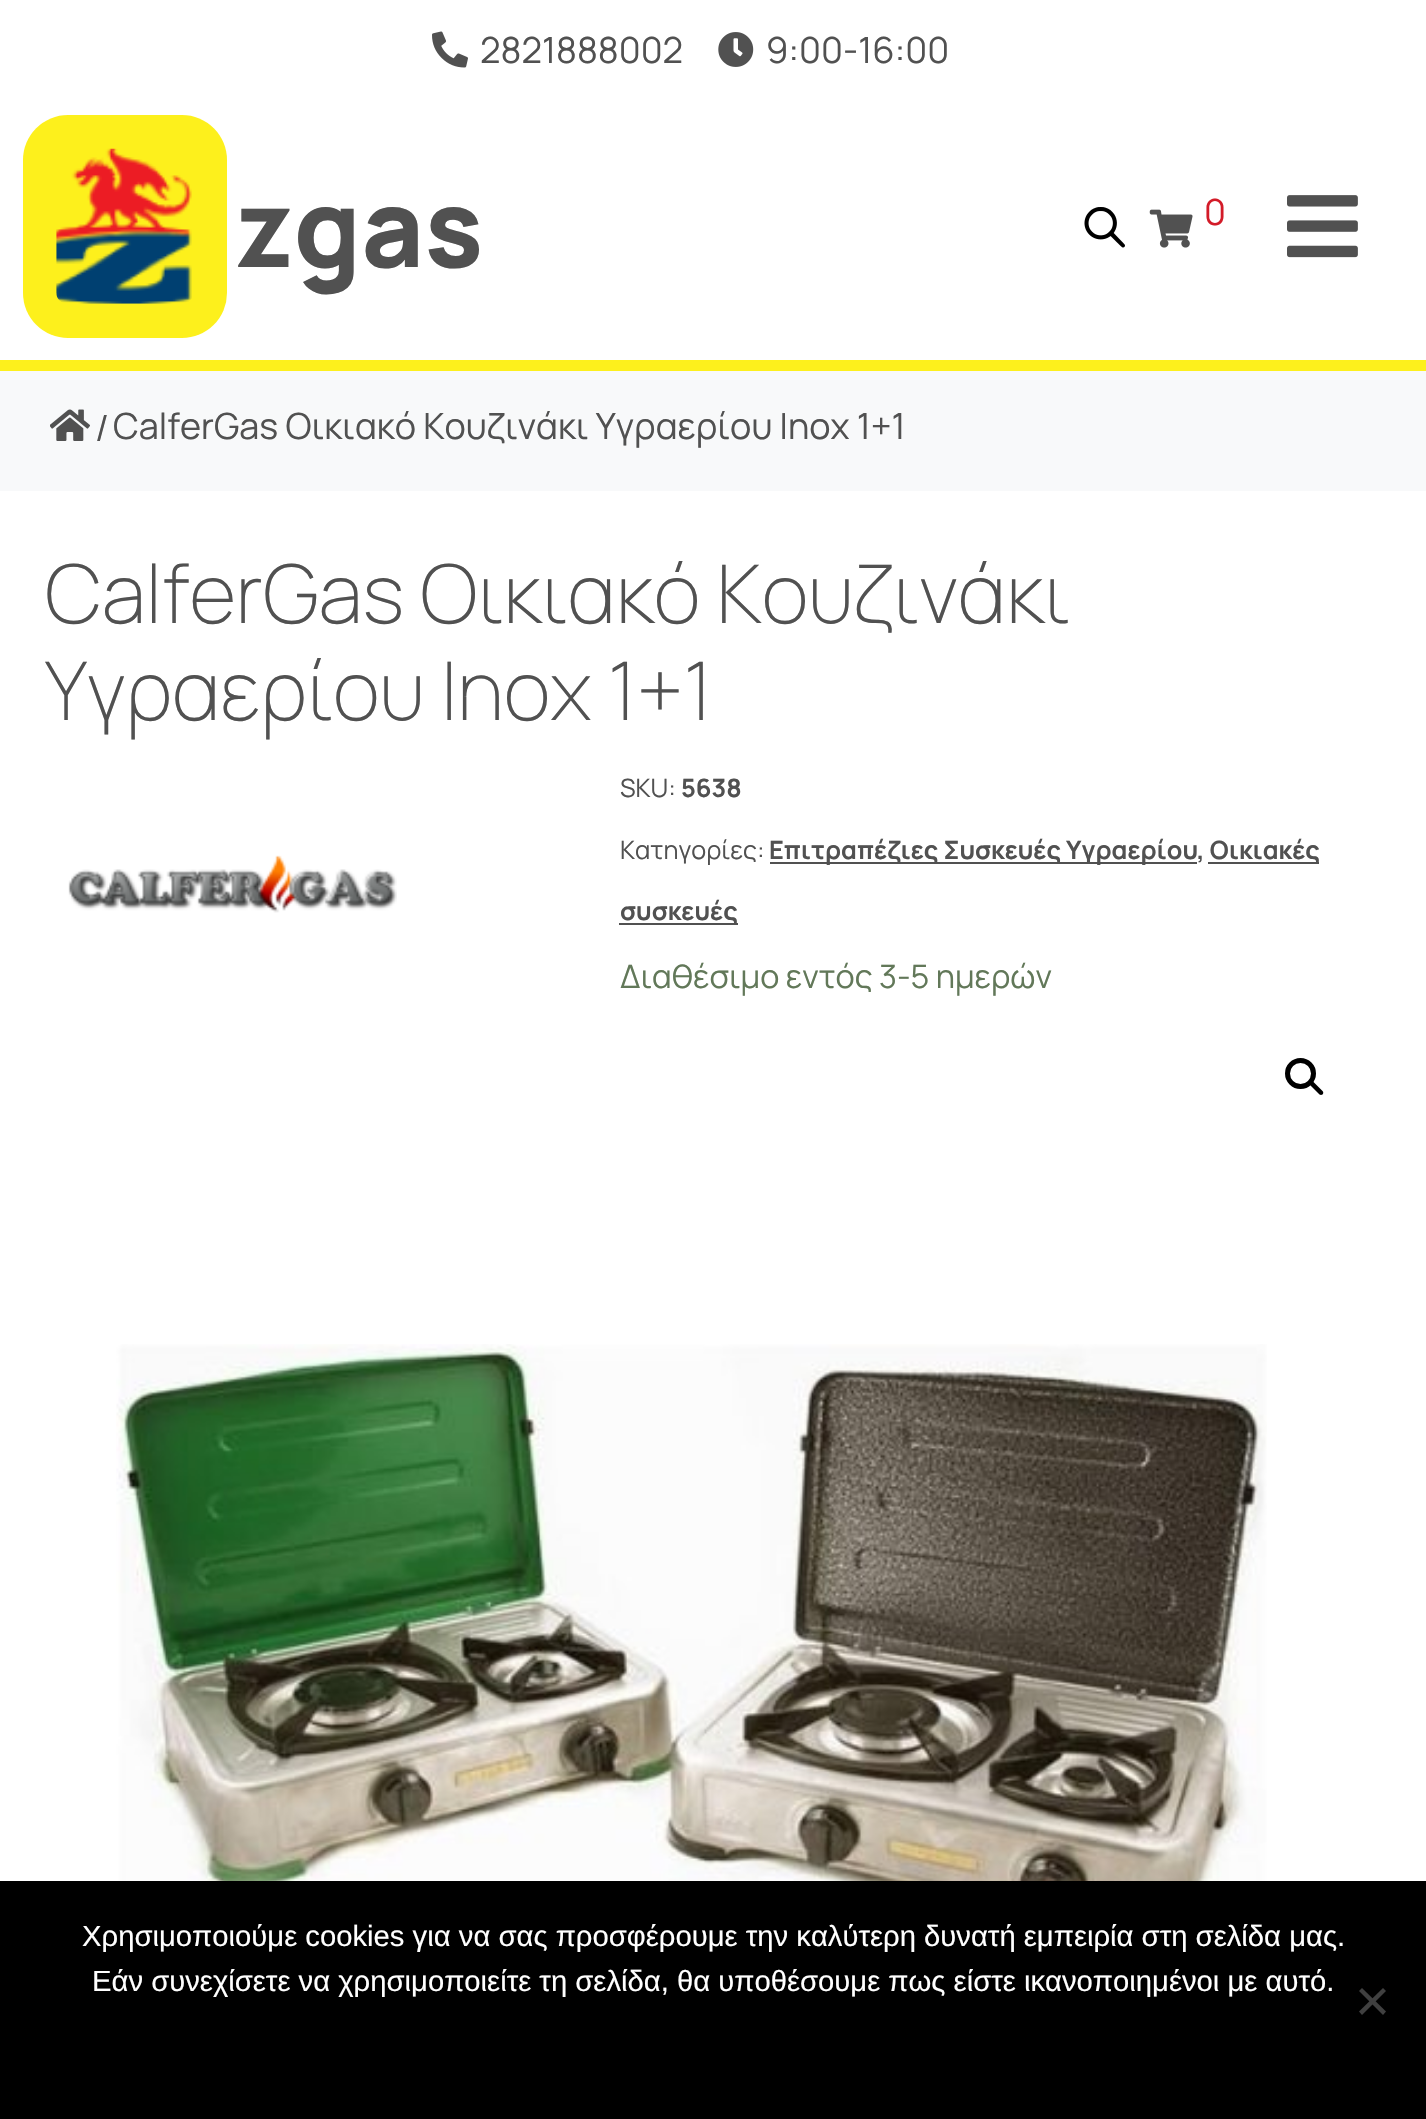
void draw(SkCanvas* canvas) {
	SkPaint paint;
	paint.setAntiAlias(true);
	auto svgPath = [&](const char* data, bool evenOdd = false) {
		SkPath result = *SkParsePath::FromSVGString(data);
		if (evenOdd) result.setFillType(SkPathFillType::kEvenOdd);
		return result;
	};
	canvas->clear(0xffffffff);
	canvas->drawImageRect(SkImages::DeferredFromEncodedData(SkData::MakeFromFileName("img1.png")), SkRect::MakeXYWH(432, 31, 36, 37), SkSamplingOptions());
	SkFont f1(fontMgr->matchFamilyStyle("Manrope", SkFontStyle::Normal()), 36);
	f1.setSubpixel(true);
	paint.setColor(0xff515151);
	canvas->drawString("2821888002", 480, 63, f1, paint);
	canvas->drawImageRect(SkImages::DeferredFromEncodedData(SkData::MakeFromFileName("img2.png")), SkRect::MakeXYWH(718, 32, 36, 35), SkSamplingOptions());
	canvas->drawString("9:00-16:00", 766, 63, f1, paint);
	paint.setColor(0xfffdf01c);
	canvas->drawRect(SkRect::MakeXYWH(0, 360, 1426, 11), paint);
	canvas->drawRoundRect(SkRect::MakeXYWH(23, 115, 204, 223), 45, 45, paint);
	canvas->drawImageRect(SkImages::DeferredFromEncodedData(SkData::MakeFromFileName("img3.png")), SkRect::MakeXYWH(56, 148, 136, 156), SkSamplingOptions());
	SkFont f2(fontMgr->matchFamilyStyle("Manrope", SkFontStyle(800, SkFontStyle::kNormal_Width, SkFontStyle::kUpright_Slant)), 108);
	f2.setSubpixel(true);
	paint.setColor(0xff515151);
	canvas->drawString("zgas", 236, 267, f2, paint);
	canvas->drawImageRect(SkImages::DeferredFromEncodedData(SkData::MakeFromFileName("img4.png")), SkRect::MakeXYWH(1084, 207, 41, 41), SkSamplingOptions());
	canvas->drawImageRect(SkImages::DeferredFromEncodedData(SkData::MakeFromFileName("img5.png")), SkRect::MakeXYWH(1149, 209, 44, 39), SkSamplingOptions());
	paint.setColor(0xffd31b28);
	canvas->drawString("0", 1204, 225, f1, paint);
	canvas->drawImageRect(SkImages::DeferredFromEncodedData(SkData::MakeFromFileName("img6.png")), SkRect::MakeXYWH(1287, 195, 71, 63), SkSamplingOptions());
	paint.setColor(0xfff8f9fa);
	canvas->drawRect(SkRect::MakeXYWH(0, 371, 1426, 120), paint);
	canvas->drawImageRect(SkImages::DeferredFromEncodedData(SkData::MakeFromFileName("img7.png")), SkRect::MakeXYWH(50, 409, 40, 32), SkSamplingOptions());
	paint.setColor(0xff515151);
	canvas->drawString("/", 95, 441, f1, paint);
	canvas->drawString("CalferGas Οικιακό Κουζινάκι Υγραερίου Inox 1+1", 113, 439, f1, paint);
	SkFont f3(fontMgr->matchFamilyStyle("Manrope", SkFontStyle(200, SkFontStyle::kNormal_Width, SkFontStyle::kUpright_Slant)), 81);
	f3.setSubpixel(true);
	canvas->drawString("CalferGas Οικιακό Κουζινάκι", 45, 623, f3, paint);
	canvas->drawString("Υγραερίου Inox 1+1", 45, 720, f3, paint);
	canvas->drawImageRect(SkImages::DeferredFromEncodedData(SkData::MakeFromFileName("img8.png")), SkRect::MakeXYWH(68, 855, 329, 58), SkSamplingOptions());
	SkFont f4(fontMgr->matchFamilyStyle("Manrope", SkFontStyle::Normal()), 25.25);
	f4.setSubpixel(true);
	canvas->drawString("SKU:", 620, 797, f4, paint);
	SkFont f5(fontMgr->matchFamilyStyle("Manrope", SkFontStyle::Bold()), 25.25);
	f5.setSubpixel(true);
	canvas->drawString("5638", 681, 797, f5, paint);
	canvas->drawString("Κατηγορίες:", 620, 859, f4, paint);
	canvas->drawRect(SkRect::MakeXYWH(770, 862, 427, 2), paint);
	canvas->drawString("Επιτραπέζιες Συσκευές Υγραερίου", 769, 859, f5, paint);
	canvas->drawString(", Οικιακές", 1197, 859, f5, paint);
	canvas->drawRect(SkRect::MakeXYWH(1208, 862, 111, 2), paint);
	canvas->drawString("συσκευές", 620, 920, f5, paint);
	canvas->drawRect(SkRect::MakeXYWH(619, 923, 119, 2), paint);
	SkFont f6(fontMgr->matchFamilyStyle("Manrope", SkFontStyle::Normal()), 32.4);
	f6.setSubpixel(true);
	paint.setColor(0xff627859);
	canvas->drawString("Διαθέσιμο εντός 3-5 ημερών", 620, 988, f6, paint);
	paint.setStroke(true);
	paint.setStrokeWidth(5);
	paint.setColor(0xff000000);
	canvas->drawCircle(1300.5, 1073.5, 13, paint);
	paint.setStroke(false);
	canvas->drawPath(svgPath("M1310 1081.5C1311 1080.5 1312 1080.5 1313 1081.5L1322.5 1091C1323.5 1092 1323.5 1093.5 1322.5 1094.5C1321.5 1095 1320.5 1095 1319.5 1094.5L1310 1085C1309 1084 1309 1082.5 1310 1081.5Z"), paint);
	canvas->drawImageRect(SkImages::DeferredFromEncodedData(SkData::MakeFromFileName("img9.png")), SkRect::MakeXYWH(116, 1344, 1151, 537), SkSamplingOptions());
	canvas->drawRect(SkRect::MakeXYWH(0, 1881, 1426, 238), paint);
	SkFont f7(fontMgr->matchFamilyStyle("Liberation Sans", SkFontStyle::Normal()), 29.25);
	f7.setSubpixel(true);
	paint.setColor(0xffffffff);
	canvas->drawString("Χρησιμοποιούμε cookies για να σας προσφέρουμε την καλύτερη δυνατή εμπειρία στη σελίδα μας.", 82, 1946, f7, paint);
	canvas->drawString("Εάν συνεχίσετε να χρησιμοποιείτε τη σελίδα, θα υποθέσουμε πως είστε ικανοποιημένοι με αυτό.", 92, 1991, f7, paint);
	paint.setColor(0xff404040);
	canvas->drawPath(svgPath("M1383 1988L1386 1991L1362 2015L1359 2011.5Z"), paint);
	canvas->drawPath(svgPath("M1359 1991L1362 1988L1386 2011.5L1383 2015Z"), paint);
}
